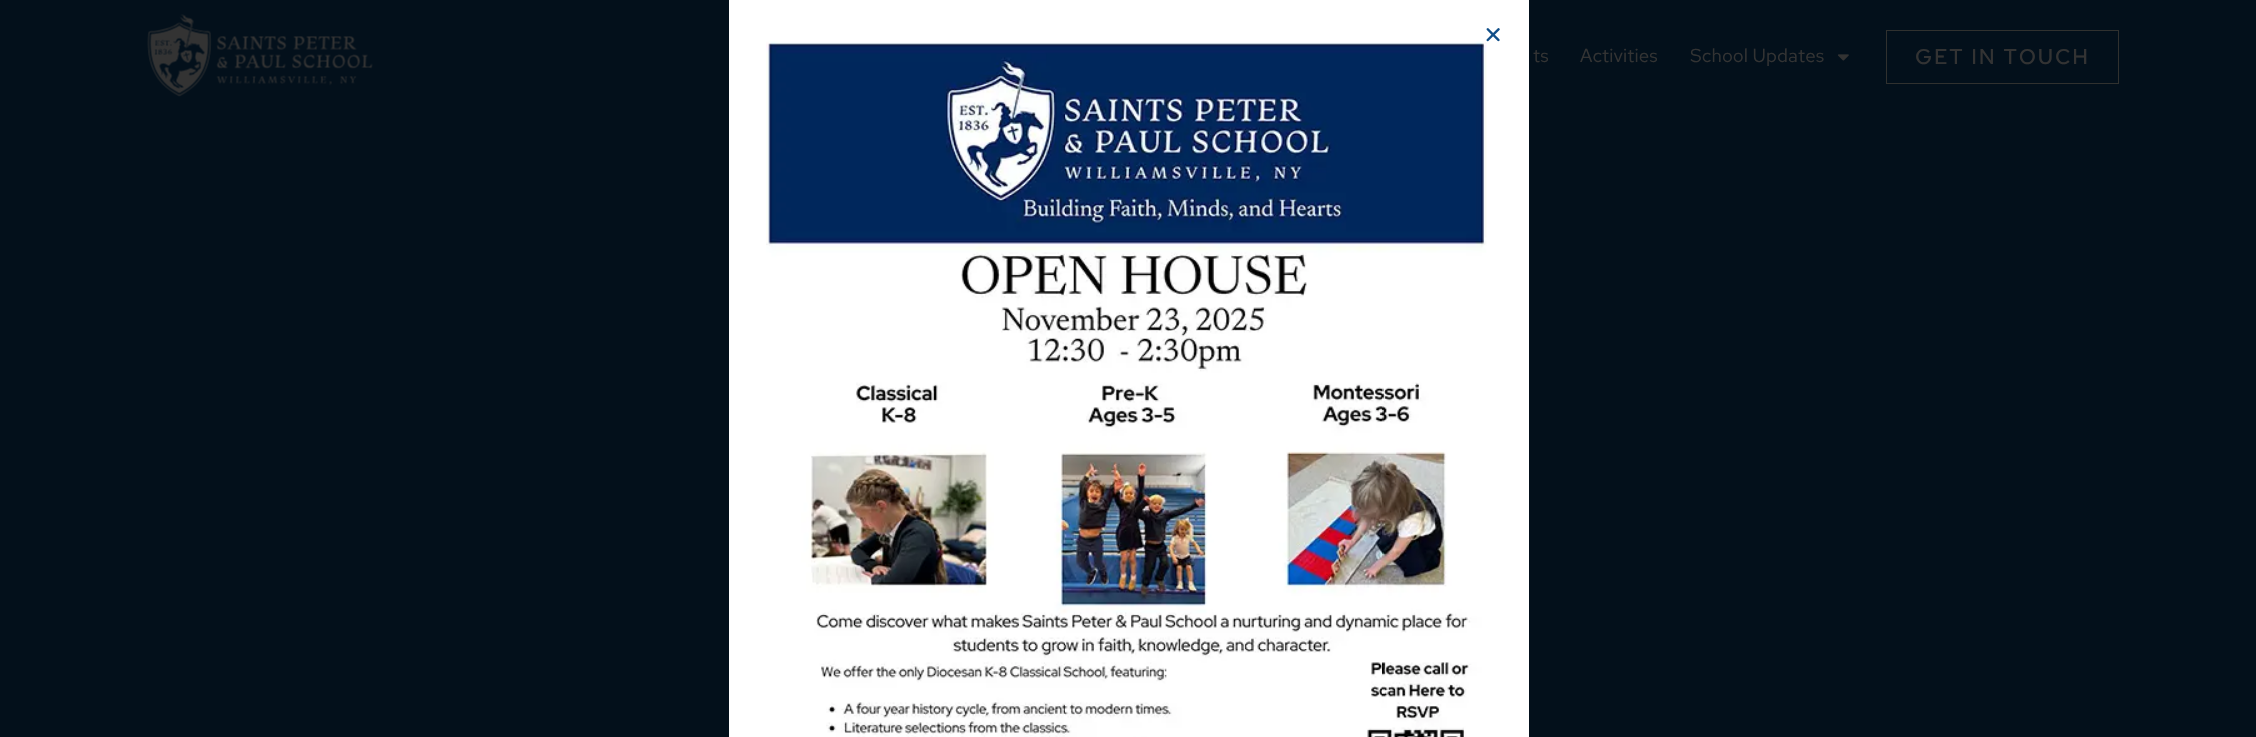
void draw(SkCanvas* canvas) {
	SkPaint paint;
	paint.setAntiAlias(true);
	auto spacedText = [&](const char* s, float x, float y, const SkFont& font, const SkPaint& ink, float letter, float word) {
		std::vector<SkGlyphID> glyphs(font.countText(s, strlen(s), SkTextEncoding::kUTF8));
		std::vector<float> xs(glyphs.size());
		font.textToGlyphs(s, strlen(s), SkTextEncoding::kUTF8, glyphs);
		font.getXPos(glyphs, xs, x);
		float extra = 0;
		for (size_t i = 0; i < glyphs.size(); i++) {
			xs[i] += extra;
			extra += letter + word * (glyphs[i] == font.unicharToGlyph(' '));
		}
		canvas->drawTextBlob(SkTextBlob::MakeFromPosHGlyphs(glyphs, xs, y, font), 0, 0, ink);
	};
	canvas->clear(0xff03101b);
	paint.setColor(0xffffffff);
	canvas->drawRect(SkRect::MakeXYWH(729, 0, 800, 737), paint);
	canvas->drawImageRect(SkImages::DeferredFromEncodedData(SkData::MakeFromFileName("img2.png")), SkRect::MakeXYWH(766, 41, 721, 696), SkSamplingOptions());
	canvas->drawImageRect(SkImages::DeferredFromEncodedData(SkData::MakeFromFileName("img1.png")), SkRect::MakeXYWH(1486, 28, 14, 14), SkSamplingOptions());
	canvas->drawImageRect(SkImages::DeferredFromEncodedData(SkData::MakeFromFileName("img3.png")), SkRect::MakeXYWH(147, 14, 226, 83), SkSamplingOptions());
	SkFont f1(fontMgr->matchFamilyStyle("Red Hat Text", SkFontStyle::Normal()), 18.75);
	f1.setSubpixel(true);
	paint.setColor(0xff333333);
	spacedText("ts", 1533, 62, f1, paint, 0.1, 0);
	spacedText("Activities", 1580, 62, f1, paint, 0.1, 0);
	spacedText("School Updates", 1690, 62, f1, paint, 0.1, 0);
	canvas->drawImageRect(SkImages::DeferredFromEncodedData(SkData::MakeFromFileName("img4.png")), SkRect::MakeXYWH(1837, 54, 12, 7), SkSamplingOptions());
	paint.setStroke(true);
	paint.setStrokeWidth(1);
	paint.setColor(0xff30312f);
	canvas->drawRect(SkRect::MakeXYWH(1886.5, 30.5, 232, 53), paint);
	SkFont f2(fontMgr->matchFamilyStyle("Red Hat Text", SkFontStyle(500, SkFontStyle::kNormal_Width, SkFontStyle::kUpright_Slant)), 21.25);
	f2.setSubpixel(true);
	paint.setStroke(false);
	paint.setColor(0xff333333);
	spacedText("GET IN TOUCH", 1915, 64, f2, paint, 1.9, 0);
}
